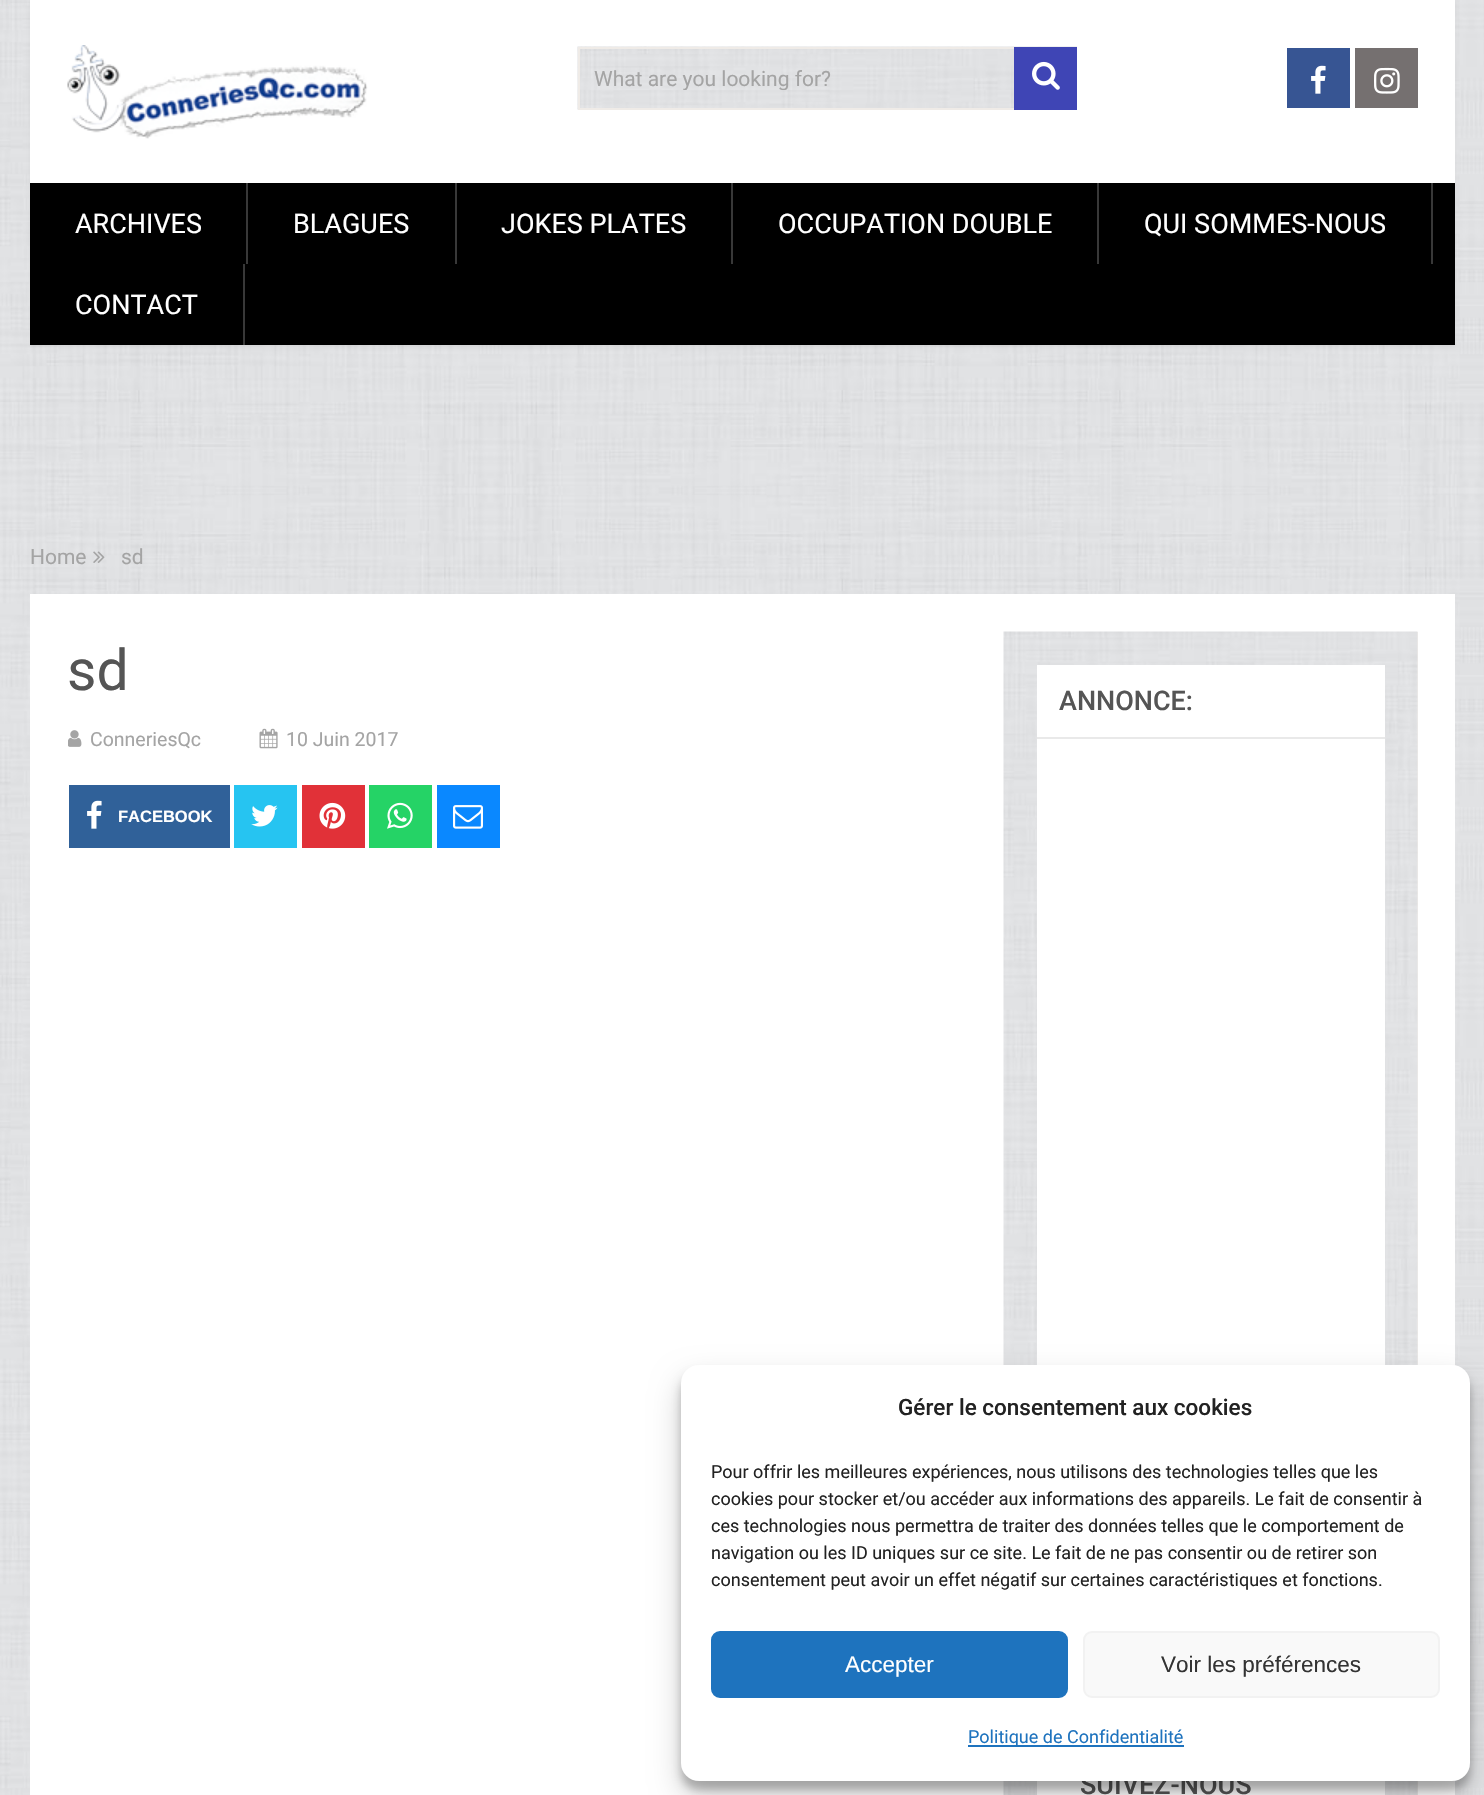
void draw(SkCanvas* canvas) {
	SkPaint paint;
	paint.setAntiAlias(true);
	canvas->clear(0xffffffff);
	canvas->drawImageRect(SkImages::DeferredFromEncodedData(SkData::MakeFromFileName("img1.png")), SkRect::MakeXYWH(0, 0, 1484, 1795), SkSamplingOptions());
	paint.setColor(0x0d000000);
	paint.setMaskFilter(SkMaskFilter::MakeBlur(kNormal_SkBlurStyle, 1.5));
	canvas->drawRect(SkRect::MakeXYWH(30, 2, 1425, 345), paint);
	paint.setMaskFilter(nullptr);
	paint.setColor(0xffffffff);
	canvas->drawRect(SkRect::MakeXYWH(30, 0, 1425, 183), paint);
	canvas->drawImageRect(SkImages::DeferredFromEncodedData(SkData::MakeFromFileName("img2.png")), SkRect::MakeXYWH(67, 45, 301, 94), SkSamplingOptions());
	canvas->drawImageRect(SkImages::DeferredFromEncodedData(SkData::MakeFromFileName("img3.png")), SkRect::MakeXYWH(577, 46, 500, 64), SkSamplingOptions());
	paint.setStroke(true);
	paint.setStrokeWidth(2);
	paint.setColor(0xffefebe7);
	canvas->drawRect(SkRect::MakeXYWH(579, 48, 497, 61), paint);
	canvas->save();
	canvas->clipRect(SkRect::MakeXYWH(579, 66, 476, 24));
	SkFont f1(fontMgr->matchFamilyStyle("Roboto", SkFontStyle::Normal()), 21);
	f1.setSubpixel(true);
	paint.setStroke(false);
	paint.setColor(0xffa4a4a4);
	canvas->drawString("What are you looking for?", 594, 86, f1, paint);
	canvas->restore();
	paint.setColor(0xff3f45b5);
	canvas->drawRect(SkRect::MakeXYWH(1014, 47, 63, 63), paint);
	canvas->drawImageRect(SkImages::DeferredFromEncodedData(SkData::MakeFromFileName("img4.png")), SkRect::MakeXYWH(1032, 61, 28, 29), SkSamplingOptions());
	paint.setColor(0xff375593);
	canvas->drawRect(SkRect::MakeXYWH(1287, 48, 63, 60), paint);
	canvas->drawImageRect(SkImages::DeferredFromEncodedData(SkData::MakeFromFileName("img5.png")), SkRect::MakeXYWH(1311, 65, 15, 29), SkSamplingOptions());
	paint.setColor(0xff757070);
	canvas->drawRect(SkRect::MakeXYWH(1355, 48, 63, 60), paint);
	canvas->drawImageRect(SkImages::DeferredFromEncodedData(SkData::MakeFromFileName("img6.png")), SkRect::MakeXYWH(1374, 67, 26, 27), SkSamplingOptions());
	paint.setColor(0xff000000);
	canvas->drawRect(SkRect::MakeXYWH(30, 183, 1425, 162), paint);
	paint.setColor(0xff383838);
	canvas->drawRect(SkRect::MakeXYWH(246, 183, 2, 81), paint);
	SkFont f2(fontMgr->matchFamilyStyle("Roboto", SkFontStyle::Normal()), 27);
	f2.setSubpixel(true);
	paint.setColor(0xffffffff);
	canvas->drawString("ARCHIVES", 75, 233, f2, paint);
	paint.setColor(0xff383838);
	canvas->drawRect(SkRect::MakeXYWH(455, 183, 2, 81), paint);
	paint.setColor(0xffffffff);
	canvas->drawString("BLAGUES", 293, 233, f2, paint);
	paint.setColor(0xff383838);
	canvas->drawRect(SkRect::MakeXYWH(731, 183, 2, 81), paint);
	paint.setColor(0xffffffff);
	canvas->drawString("JOKES PLATES", 501, 233, f2, paint);
	paint.setColor(0xff383838);
	canvas->drawRect(SkRect::MakeXYWH(1097, 183, 2, 81), paint);
	paint.setColor(0xffffffff);
	canvas->drawString("OCCUPATION DOUBLE", 778, 233, f2, paint);
	paint.setColor(0xff383838);
	canvas->drawRect(SkRect::MakeXYWH(1431, 183, 2, 81), paint);
	paint.setColor(0xffffffff);
	canvas->drawString("QUI SOMMES-NOUS", 1144, 233, f2, paint);
	paint.setColor(0xff383838);
	canvas->drawRect(SkRect::MakeXYWH(243, 264, 2, 81), paint);
	paint.setColor(0xffffffff);
	canvas->drawString("CONTACT", 75, 314, f2, paint);
	paint.setColor(0xffa4a4a4);
	canvas->drawString("Home", 30, 564, f1, paint);
	canvas->drawImageRect(SkImages::DeferredFromEncodedData(SkData::MakeFromFileName("img7.png")), SkRect::MakeXYWH(93, 551, 12, 12), SkSamplingOptions());
	canvas->drawString("sd", 121, 564, f1, paint);
	paint.setColor(0xffffffff);
	canvas->drawRect(SkRect::MakeXYWH(30, 594, 1425, 1201), paint);
	SkFont f3(fontMgr->matchFamilyStyle("Roboto", SkFontStyle::Normal()), 57);
	f3.setSubpixel(true);
	paint.setColor(0xff555555);
	canvas->drawString("sd", 67, 690, f3, paint);
	canvas->drawImageRect(SkImages::DeferredFromEncodedData(SkData::MakeFromFileName("img8.png")), SkRect::MakeXYWH(68, 730, 14, 17), SkSamplingOptions());
	SkFont f4(fontMgr->matchFamilyStyle("Roboto", SkFontStyle::Normal()), 19.5);
	f4.setSubpixel(true);
	paint.setColor(0xffa4a4a4);
	canvas->drawString("ConneriesQc", 90, 746, f4, paint);
	canvas->drawImageRect(SkImages::DeferredFromEncodedData(SkData::MakeFromFileName("img9.png")), SkRect::MakeXYWH(259, 728, 19, 21), SkSamplingOptions());
	canvas->drawString("10 Juin 2017", 286, 746, f4, paint);
	paint.setColor(0xff306199);
	canvas->drawRect(SkRect::MakeXYWH(69, 785, 161, 63), paint);
	canvas->drawImageRect(SkImages::DeferredFromEncodedData(SkData::MakeFromFileName("img10.png")), SkRect::MakeXYWH(87, 800, 15, 29), SkSamplingOptions());
	SkFont f5(fontMgr->matchFamilyStyle("Liberation Sans", SkFontStyle::Bold()), 16.5);
	f5.setSubpixel(true);
	paint.setColor(0xffffffff);
	canvas->drawString("FACEBOOK", 118, 822, f5, paint);
	paint.setColor(0xff26c4f1);
	canvas->drawRect(SkRect::MakeXYWH(234, 785, 63, 63), paint);
	canvas->drawImageRect(SkImages::DeferredFromEncodedData(SkData::MakeFromFileName("img11.png")), SkRect::MakeXYWH(251, 805, 27, 22), SkSamplingOptions());
	paint.setColor(0xffe13138);
	canvas->drawRect(SkRect::MakeXYWH(302, 785, 63, 63), paint);
	canvas->drawImageRect(SkImages::DeferredFromEncodedData(SkData::MakeFromFileName("img12.png")), SkRect::MakeXYWH(319, 802, 27, 27), SkSamplingOptions());
	paint.setColor(0xff25d366);
	canvas->drawRect(SkRect::MakeXYWH(369, 785, 63, 63), paint);
	canvas->drawImageRect(SkImages::DeferredFromEncodedData(SkData::MakeFromFileName("img13.png")), SkRect::MakeXYWH(387, 802, 26, 27), SkSamplingOptions());
	paint.setColor(0xff0a88ff);
	canvas->drawRect(SkRect::MakeXYWH(437, 785, 63, 63), paint);
	canvas->drawImageRect(SkImages::DeferredFromEncodedData(SkData::MakeFromFileName("img14.png")), SkRect::MakeXYWH(453, 805, 30, 24), SkSamplingOptions());
	paint.setColor(0xfff0ede9);
	canvas->drawRect(SkRect::MakeXYWH(1417, 632, 1, 1163), paint);
	canvas->drawImageRect(SkImages::DeferredFromEncodedData(SkData::MakeFromFileName("img15.png")), SkRect::MakeXYWH(1003, 631, 415, 1164), SkSamplingOptions());
	paint.setColor(0xffffffff);
	canvas->drawRect(SkRect::MakeXYWH(1037, 665, 348, 700), paint);
	paint.setColor(0xffe9e9e9);
	canvas->drawRect(SkRect::MakeXYWH(1037, 737, 348, 2), paint);
	SkFont f6(fontMgr->matchFamilyStyle("Roboto", SkFontStyle(500, SkFontStyle::kNormal_Width, SkFontStyle::kUpright_Slant)), 27);
	f6.setSubpixel(true);
	paint.setColor(0xff555555);
	canvas->drawString("ANNONCE:", 1059, 710, f6, paint);
	paint.setColor(0xffffffff);
	canvas->drawRect(SkRect::MakeXYWH(1037, 1781, 348, 14), paint);
	paint.setColor(0xff555555);
	canvas->drawString("SUIVEZ-NOUS", 1080, 1794, f6, paint);
	paint.setColor(0x3b000000);
	paint.setMaskFilter(SkMaskFilter::MakeBlur(kNormal_SkBlurStyle, 4.5));
	canvas->drawRoundRect(SkRect::MakeXYWH(681, 1374, 789, 416), 18, 18, paint);
	paint.setMaskFilter(nullptr);
	paint.setColor(0x30000000);
	paint.setMaskFilter(SkMaskFilter::MakeBlur(kNormal_SkBlurStyle, 15));
	canvas->drawRoundRect(SkRect::MakeXYWH(681, 1380, 789, 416), 18, 18, paint);
	paint.setMaskFilter(nullptr);
	paint.setColor(0xffffffff);
	canvas->drawRoundRect(SkRect::MakeXYWH(681, 1365, 789, 416), 18, 18, paint);
	SkFont f7(fontMgr->matchFamilyStyle("Roboto", SkFontStyle(500, SkFontStyle::kNormal_Width, SkFontStyle::kUpright_Slant)), 22.5);
	f7.setSubpixel(true);
	paint.setColor(0xff222222);
	canvas->drawString("Gérer le consentement aux cookies", 898, 1415, f7, paint);
	SkFont f8(fontMgr->matchFamilyStyle("Roboto", SkFontStyle::Normal()), 18);
	f8.setSubpixel(true);
	canvas->drawString("Pour offrir les meilleures expériences, nous utilisons des technologies telles que les", 711, 1478, f8, paint);
	canvas->drawString("cookies pour stocker et/ou accéder aux informations des appareils. Le fait de consentir à", 711, 1505, f8, paint);
	canvas->drawString("ces technologies nous permettra de traiter des données telles que le comportement de", 711, 1532, f8, paint);
	canvas->drawString("navigation ou les ID uniques sur ce site. Le fait de ne pas consentir ou de retirer son", 711, 1559, f8, paint);
	canvas->drawString("consentement peut avoir un effet négatif sur certaines caractéristiques et fonctions.", 711, 1586, f8, paint);
	paint.setColor(0xff1e73be);
	canvas->drawRoundRect(SkRect::MakeXYWH(712, 1632, 355, 65), 8, 8, paint);
	paint.setStroke(true);
	canvas->drawRoundRect(SkRect::MakeXYWH(712, 1632, 355, 65), 8, 8, paint);
	SkFont f9(fontMgr->matchFamilyStyle("Liberation Sans", SkFontStyle::Normal()), 22.5);
	f9.setSubpixel(true);
	paint.setStroke(false);
	paint.setColor(0xffffffff);
	canvas->drawString("Accepter", 845, 1672, f9, paint);
	paint.setColor(0xfff9f9f9);
	canvas->drawRoundRect(SkRect::MakeXYWH(1084, 1632, 355, 65), 8, 8, paint);
	paint.setStroke(true);
	paint.setColor(0xfff2f2f2);
	canvas->drawRoundRect(SkRect::MakeXYWH(1084, 1632, 355, 65), 8, 8, paint);
	paint.setStroke(false);
	paint.setColor(0xff333333);
	canvas->drawString("Voir les préférences", 1161, 1672, f9, paint);
	paint.setColor(0xff1e73be);
	canvas->drawRect(SkRect::MakeXYWH(968, 1745, 216, 2), paint);
	canvas->drawString("Politique de Confidentialité", 968, 1743, f8, paint);
}
